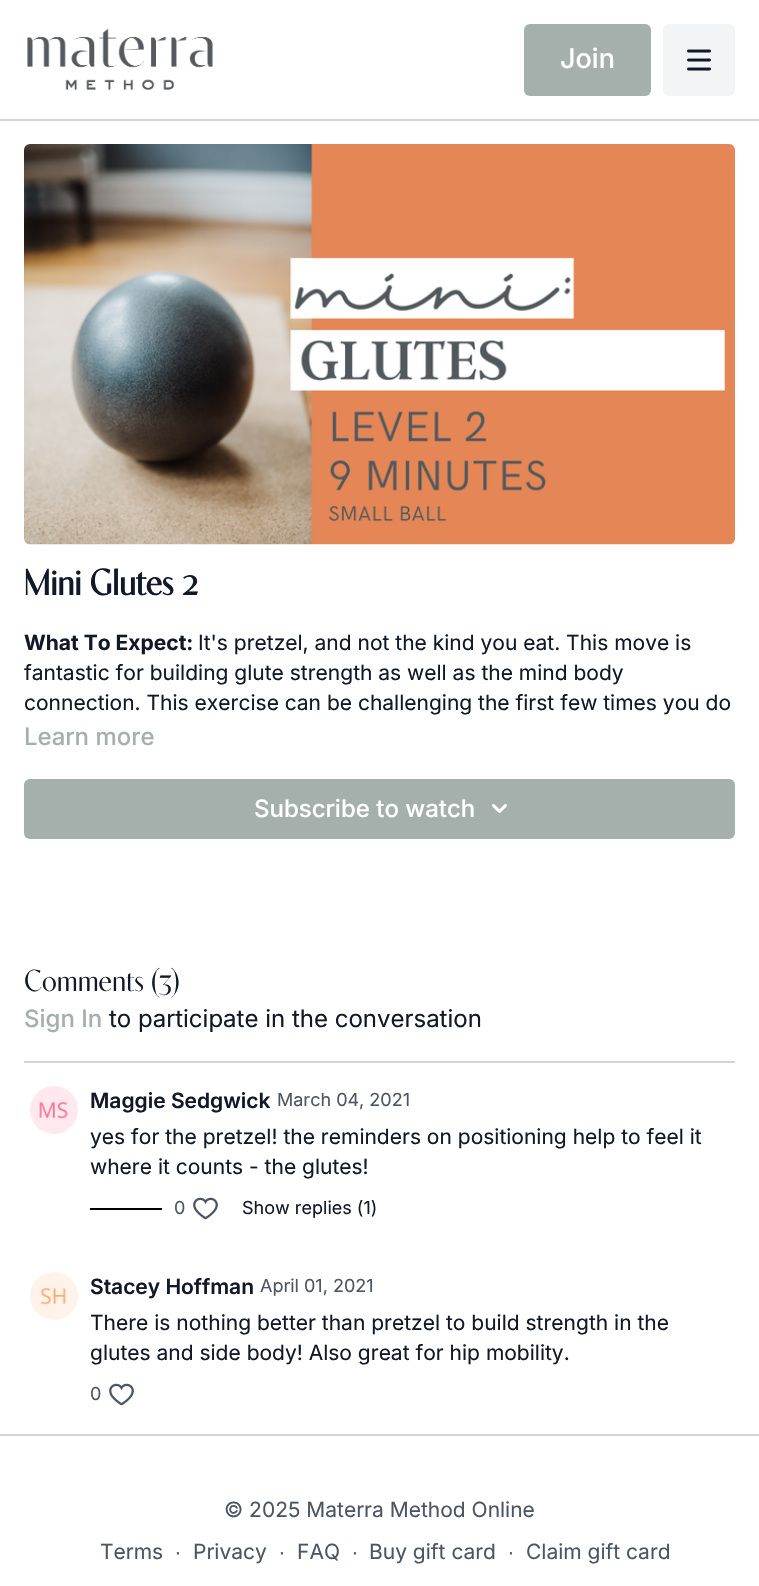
void draw(SkCanvas* canvas) {
	SkPaint paint;
	paint.setAntiAlias(true);
	canvas->clear(0xffffffff);
	paint.setColor(0xffd1d5db);
	canvas->drawRect(SkRect::MakeXYWH(0, 119, 759, 2), paint);
	canvas->drawImageRect(SkImages::DeferredFromEncodedData(SkData::MakeFromFileName("img1.png")), SkRect::MakeXYWH(27, 28, 186, 62), SkSamplingOptions());
	paint.setColor(0xffa5b0ad);
	canvas->drawRoundRect(SkRect::MakeXYWH(524, 24, 127, 72), 6, 6, paint);
	SkFont f1(fontMgr->matchFamilyStyle("Inter", SkFontStyle(500, SkFontStyle::kNormal_Width, SkFontStyle::kUpright_Slant)), 27);
	f1.setSubpixel(true);
	paint.setColor(0xffffffff);
	canvas->drawString("Join", 560, 68, f1, paint);
	paint.setColor(0xfff3f4f6);
	canvas->drawRoundRect(SkRect::MakeXYWH(663, 24, 72, 72), 6, 6, paint);
	canvas->drawImageRect(SkImages::DeferredFromEncodedData(SkData::MakeFromFileName("img2.png")), SkRect::MakeXYWH(687, 49, 24, 22), SkSamplingOptions());
	canvas->drawImageRect(SkImages::DeferredFromEncodedData(SkData::MakeFromFileName("img3.png")), SkRect::MakeXYWH(24, 144, 711, 401), SkSamplingOptions());
	SkFont f2(fontMgr->matchFamilyStyle("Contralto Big", SkFontStyle::Bold()), 36);
	f2.setSubpixel(true);
	paint.setColor(0xff111827);
	canvas->drawString("Mini Glutes 2", 24, 595, f2, paint);
	SkFont f3(fontMgr->matchFamilyStyle("Inter", SkFontStyle::Bold()), 21);
	f3.setSubpixel(true);
	canvas->drawString("What To Expect:", 24, 650, f3, paint);
	SkFont f4(fontMgr->matchFamilyStyle("Inter", SkFontStyle::Normal()), 21);
	f4.setSubpixel(true);
	canvas->drawString("It's pretzel, and not the kind you eat. This move is", 198, 650, f4, paint);
	canvas->drawString("fantastic for building glute strength as well as the mind body", 24, 680, f4, paint);
	canvas->drawString("connection. This exercise can be challenging the first few times you do", 24, 710, f4, paint);
	SkFont f5(fontMgr->matchFamilyStyle("Inter", SkFontStyle(500, SkFontStyle::kNormal_Width, SkFontStyle::kUpright_Slant)), 24);
	f5.setSubpixel(true);
	paint.setColor(0xffa5b0ad);
	canvas->drawString("Learn more", 24, 745, f5, paint);
	canvas->drawRoundRect(SkRect::MakeXYWH(24, 779, 711, 60), 6, 6, paint);
	paint.setColor(0xffffffff);
	canvas->drawString("Subscribe to watch", 254, 817, f5, paint);
	canvas->drawImageRect(SkImages::DeferredFromEncodedData(SkData::MakeFromFileName("img4.png")), SkRect::MakeXYWH(492, 804, 15, 9), SkSamplingOptions());
	SkFont f6(fontMgr->matchFamilyStyle("Contralto Big", SkFontStyle(300, SkFontStyle::kNormal_Width, SkFontStyle::kUpright_Slant)), 30);
	f6.setSubpixel(true);
	paint.setColor(0xff111827);
	canvas->drawString("Comments (3)", 24, 991, f6, paint);
	paint.setColor(0xffa5b0ad);
	canvas->drawString("Sign In", 24, 1027, f5, paint);
	SkFont f7(fontMgr->matchFamilyStyle("Inter", SkFontStyle::Normal()), 24);
	f7.setSubpixel(true);
	paint.setColor(0xff111827);
	canvas->drawString("to participate in the conversation", 109, 1027, f7, paint);
	paint.setColor(0xffd1d5db);
	canvas->drawRect(SkRect::MakeXYWH(24, 1061, 711, 2), paint);
	canvas->drawImageRect(SkImages::DeferredFromEncodedData(SkData::MakeFromFileName("img5.png")), SkRect::MakeXYWH(30, 1086, 48, 48), SkSamplingOptions());
	SkFont f8(fontMgr->matchFamilyStyle("Inter", SkFontStyle(600, SkFontStyle::kNormal_Width, SkFontStyle::kUpright_Slant)), 21);
	f8.setSubpixel(true);
	paint.setColor(0xff111827);
	canvas->drawString("Maggie Sedgwick", 90, 1108, f8, paint);
	SkFont f9(fontMgr->matchFamilyStyle("Inter", SkFontStyle::Normal()), 18);
	f9.setSubpixel(true);
	paint.setColor(0xff4b5563);
	canvas->drawString("March 04, 2021", 277, 1106, f9, paint);
	paint.setColor(0xff111827);
	canvas->drawString("yes for the pretzel! the reminders on positioning help to feel it", 90, 1144, f4, paint);
	canvas->drawString("where it counts - the glutes!", 90, 1174, f4, paint);
	paint.setColor(0xff000000);
	canvas->drawRect(SkRect::MakeXYWH(90, 1208, 72, 2), paint);
	paint.setColor(0xff4b5563);
	canvas->drawString("0", 174, 1214, f9, paint);
	canvas->drawImageRect(SkImages::DeferredFromEncodedData(SkData::MakeFromFileName("img6.png")), SkRect::MakeXYWH(193, 1197, 25, 23), SkSamplingOptions());
	paint.setColor(0xff111827);
	canvas->drawString("Show replies (1)", 242, 1214, f9, paint);
	canvas->drawImageRect(SkImages::DeferredFromEncodedData(SkData::MakeFromFileName("img7.png")), SkRect::MakeXYWH(30, 1272, 48, 48), SkSamplingOptions());
	canvas->drawString("Stacey Hoffman", 90, 1294, f8, paint);
	paint.setColor(0xff4b5563);
	canvas->drawString("April 01, 2021", 260, 1292, f9, paint);
	paint.setColor(0xff111827);
	canvas->drawString("There is nothing better than pretzel to build strength in the", 90, 1330, f4, paint);
	canvas->drawString("glutes and side body! Also great for hip mobility.", 90, 1360, f4, paint);
	paint.setColor(0xff4b5563);
	canvas->drawString("0", 90, 1400, f9, paint);
	canvas->drawImageRect(SkImages::DeferredFromEncodedData(SkData::MakeFromFileName("img6.png")), SkRect::MakeXYWH(109, 1383, 25, 23), SkSamplingOptions());
	paint.setColor(0xffd1d5db);
	canvas->drawRect(SkRect::MakeXYWH(0, 1434, 759, 2), paint);
	paint.setColor(0xff4b5563);
	canvas->drawString("© 2025 Materra Method Online", 224, 1517, f4, paint);
	canvas->drawString("Terms", 100, 1559, f4, paint);
	SkFont f10(fontMgr->matchFamilyStyle("Liberation Sans", SkFontStyle::Normal()), 21);
	f10.setSubpixel(true);
	canvas->drawString("∙", 175, 1559, f10, paint);
	canvas->drawString("Privacy", 193, 1559, f4, paint);
	canvas->drawString("∙", 279, 1559, f10, paint);
	canvas->drawString("FAQ", 297, 1559, f4, paint);
	canvas->drawString("∙", 352, 1559, f10, paint);
	canvas->drawString("Buy gift card", 369, 1559, f4, paint);
	canvas->drawString("∙", 508, 1559, f10, paint);
	canvas->drawString("Claim gift card", 526, 1559, f4, paint);
}
